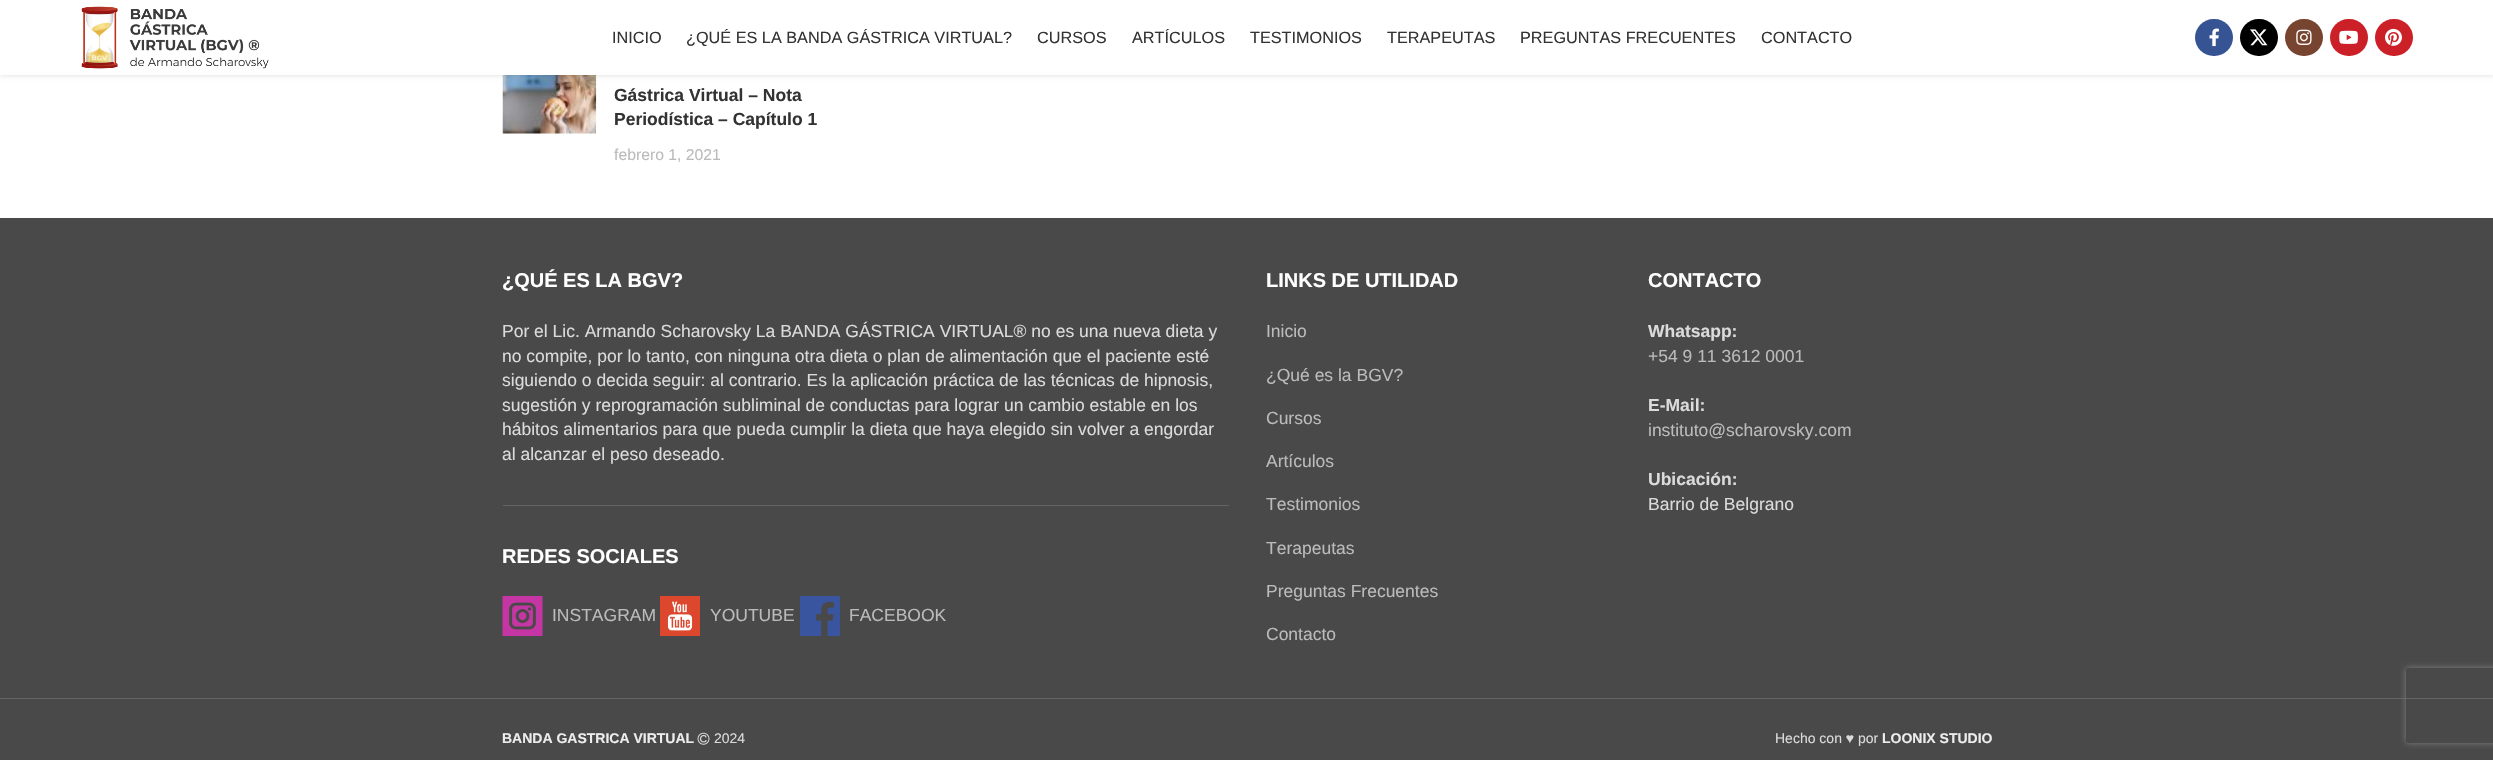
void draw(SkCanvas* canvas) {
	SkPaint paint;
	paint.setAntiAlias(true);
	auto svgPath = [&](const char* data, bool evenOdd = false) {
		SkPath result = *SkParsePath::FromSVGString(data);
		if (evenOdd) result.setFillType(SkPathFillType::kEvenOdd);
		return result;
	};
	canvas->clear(0xffffffff);
	canvas->drawImageRect(SkImages::DeferredFromEncodedData(SkData::MakeFromFileName("img7.png")), SkRect::MakeXYWH(502, 75, 95, 59), SkSamplingOptions());
	paint.setColor(0x1a000000);
	paint.setMaskFilter(SkMaskFilter::MakeBlur(kNormal_SkBlurStyle, 2));
	canvas->drawRect(SkRect::MakeXYWH(0, 1, 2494, 75), paint);
	paint.setMaskFilter(nullptr);
	paint.setColor(0xffffffff);
	canvas->drawRect(SkRect::MakeXYWH(0, 0, 2493, 75), paint);
	canvas->drawImageRect(SkImages::DeferredFromEncodedData(SkData::MakeFromFileName("img1.png")), SkRect::MakeXYWH(81, 6, 188, 63), SkSamplingOptions());
	SkFont f1(fontMgr->matchFamilyStyle("Liberation Sans", SkFontStyle::Normal()), 16.25);
	f1.setSubpixel(true);
	paint.setColor(0xff333333);
	canvas->drawString("INICIO", 612, 43, f1, paint);
	canvas->drawString("¿QUÉ ES LA BANDA GÁSTRICA VIRTUAL?", 686, 43, f1, paint);
	canvas->drawString("CURSOS", 1037, 43, f1, paint);
	canvas->drawString("ARTÍCULOS", 1132, 43, f1, paint);
	canvas->drawString("TESTIMONIOS", 1250, 43, f1, paint);
	canvas->drawString("TERAPEUTAS", 1387, 43, f1, paint);
	canvas->drawString("PREGUNTAS FRECUENTES", 1520, 43, f1, paint);
	canvas->drawString("CONTACTO", 1761, 43, f1, paint);
	paint.setColor(0xff365493);
	canvas->drawRoundRect(SkRect::MakeXYWH(2195, 19, 38, 37), 18.5, 18.5, paint);
	canvas->drawImageRect(SkImages::DeferredFromEncodedData(SkData::MakeFromFileName("img2.png")), SkRect::MakeXYWH(2209, 28, 10, 19), SkSamplingOptions());
	paint.setColor(0xff000000);
	canvas->drawRoundRect(SkRect::MakeXYWH(2240, 19, 38, 37), 18.5, 18.5, paint);
	canvas->drawImageRect(SkImages::DeferredFromEncodedData(SkData::MakeFromFileName("img3.png")), SkRect::MakeXYWH(2250, 29, 18, 17), SkSamplingOptions());
	paint.setColor(0xff774430);
	canvas->drawRoundRect(SkRect::MakeXYWH(2285, 19, 38, 37), 18.5, 18.5, paint);
	canvas->drawImageRect(SkImages::DeferredFromEncodedData(SkData::MakeFromFileName("img4.png")), SkRect::MakeXYWH(2296, 29, 16, 16), SkSamplingOptions());
	paint.setColor(0xffcb2027);
	canvas->drawRoundRect(SkRect::MakeXYWH(2330, 19, 38, 37), 18.5, 18.5, paint);
	canvas->drawImageRect(SkImages::DeferredFromEncodedData(SkData::MakeFromFileName("img5.png")), SkRect::MakeXYWH(2339, 30, 19, 14), SkSamplingOptions());
	canvas->drawRoundRect(SkRect::MakeXYWH(2375, 19, 38, 37), 18.5, 18.5, paint);
	canvas->drawImageRect(SkImages::DeferredFromEncodedData(SkData::MakeFromFileName("img6.png")), SkRect::MakeXYWH(2385, 28, 17, 18), SkSamplingOptions());
	SkFont f2(fontMgr->matchFamilyStyle("Liberation Sans", SkFontStyle::Bold()), 17.5);
	f2.setSubpixel(true);
	paint.setColor(0xff333333);
	canvas->drawString("Gástrica Virtual – Nota", 614, 101, f2, paint);
	canvas->drawString("Periodística – Capítulo 1", 614, 125, f2, paint);
	SkFont f3(fontMgr->matchFamilyStyle("Liberation Sans", SkFontStyle::Normal()), 15.75);
	f3.setSubpixel(true);
	paint.setColor(0xffbbbbbb);
	canvas->drawString("febrero 1, 2021", 614, 160, f3, paint);
	paint.setColor(0xff494949);
	canvas->drawRect(SkRect::MakeXYWH(0, 218, 2493, 542), paint);
	paint.setColor(0xff646464);
	canvas->drawRect(SkRect::MakeXYWH(503, 505, 726, 1), paint);
	SkFont f4(fontMgr->matchFamilyStyle("Liberation Sans", SkFontStyle::Bold()), 20);
	f4.setSubpixel(true);
	paint.setColor(0xffffffff);
	canvas->drawString("¿QUÉ ES LA BGV?", 502, 287, f4, paint);
	SkFont f5(fontMgr->matchFamilyStyle("Liberation Sans", SkFontStyle::Normal()), 17.5);
	f5.setSubpixel(true);
	paint.setColor(0xffdbdbdb);
	canvas->drawString("Por el Lic. Armando Scharovsky La BANDA GÁSTRICA VIRTUAL® no es una nueva dieta y", 502, 337, f5, paint);
	canvas->drawString("no compite, por lo tanto, con ninguna otra dieta o plan de alimentación que el paciente esté", 502, 362, f5, paint);
	canvas->drawString("siguiendo o decida seguir: al contrario. Es la aplicación práctica de las técnicas de hipnosis,", 502, 386, f5, paint);
	canvas->drawString("sugestión y reprogramación subliminal de conductas para lograr un cambio estable en los", 502, 411, f5, paint);
	canvas->drawString("hábitos alimentarios para que pueda cumplir la dieta que haya elegido sin volver a engordar", 502, 435, f5, paint);
	canvas->drawString("al alcanzar el peso deseado.", 502, 460, f5, paint);
	paint.setColor(0xffffffff);
	canvas->drawString("REDES SOCIALES", 502, 563, f4, paint);
	canvas->drawImageRect(SkImages::DeferredFromEncodedData(SkData::MakeFromFileName("img8.png")), SkRect::MakeXYWH(502, 596, 41, 40), SkSamplingOptions());
	paint.setColor(0xffbbbbbb);
	canvas->drawString("INSTAGRAM", 552, 621, f5, paint);
	canvas->drawImageRect(SkImages::DeferredFromEncodedData(SkData::MakeFromFileName("img9.png")), SkRect::MakeXYWH(660, 596, 40, 40), SkSamplingOptions());
	canvas->drawString("YOUTUBE", 710, 621, f5, paint);
	canvas->drawImageRect(SkImages::DeferredFromEncodedData(SkData::MakeFromFileName("img10.png")), SkRect::MakeXYWH(800, 596, 40, 40), SkSamplingOptions());
	canvas->drawString("FACEBOOK", 849, 621, f5, paint);
	paint.setColor(0xffffffff);
	canvas->drawString("LINKS DE UTILIDAD", 1266, 287, f4, paint);
	paint.setColor(0xffbbbbbb);
	canvas->drawString("Inicio", 1266, 337, f5, paint);
	canvas->drawString("¿Qué es la BGV?", 1266, 381, f5, paint);
	canvas->drawString("Cursos", 1266, 424, f5, paint);
	canvas->drawString("Artículos", 1266, 467, f5, paint);
	canvas->drawString("Testimonios", 1266, 510, f5, paint);
	canvas->drawString("Terapeutas", 1266, 554, f5, paint);
	canvas->drawString("Preguntas Frecuentes", 1266, 597, f5, paint);
	canvas->drawString("Contacto", 1266, 640, f5, paint);
	paint.setColor(0xffffffff);
	canvas->drawString("CONTACTO", 1648, 287, f4, paint);
	paint.setColor(0xffdbdbdb);
	canvas->drawString("Whatsapp:", 1648, 337, f2, paint);
	paint.setColor(0xffbbbbbb);
	canvas->drawString("+54 9 11 3612 0001", 1648, 362, f5, paint);
	paint.setColor(0xffdbdbdb);
	canvas->drawString("E-Mail:", 1648, 411, f2, paint);
	paint.setColor(0xffbbbbbb);
	canvas->drawString("instituto@scharovsky.com", 1648, 436, f5, paint);
	paint.setColor(0xffdbdbdb);
	canvas->drawString("Ubicación:", 1648, 485, f2, paint);
	canvas->drawString("Barrio de Belgrano", 1648, 510, f5, paint);
	paint.setColor(0xff646464);
	canvas->drawRect(SkRect::MakeXYWH(0, 698, 2493, 1), paint);
	SkFont f6(fontMgr->matchFamilyStyle("Liberation Sans", SkFontStyle::Bold()), 14);
	f6.setSubpixel(true);
	paint.setColor(0xffededed);
	canvas->drawString("BANDA GASTRICA VIRTUAL", 502, 743, f6, paint);
	canvas->drawImageRect(SkImages::DeferredFromEncodedData(SkData::MakeFromFileName("img11.png")), SkRect::MakeXYWH(697, 732, 13, 13), SkSamplingOptions());
	SkFont f7(fontMgr->matchFamilyStyle("Liberation Sans", SkFontStyle::Normal()), 14);
	f7.setSubpixel(true);
	paint.setColor(0xffdbdbdb);
	canvas->drawString("2024", 714, 743, f7, paint);
	canvas->drawString("Hecho con ♥ por", 1775, 743, f7, paint);
	paint.setColor(0xffededed);
	canvas->drawString("LOONIX STUDIO", 1882, 743, f6, paint);
	canvas->save();
	canvas->clipPath(svgPath("M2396 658H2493V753H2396ZM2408.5 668H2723.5C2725 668 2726 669 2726 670.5V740.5C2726 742 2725 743 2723.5 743H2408.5C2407 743 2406 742 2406 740.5V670.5C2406 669 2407 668 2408.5 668Z", true), true);
	paint.setColor(0xff808080);
	paint.setMaskFilter(SkMaskFilter::MakeBlur(kNormal_SkBlurStyle, 3));
	canvas->drawRoundRect(SkRect::MakeXYWH(2406, 668, 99, 75), 2.5, 2.5, paint);
	paint.setMaskFilter(nullptr);
	canvas->restore();
}
